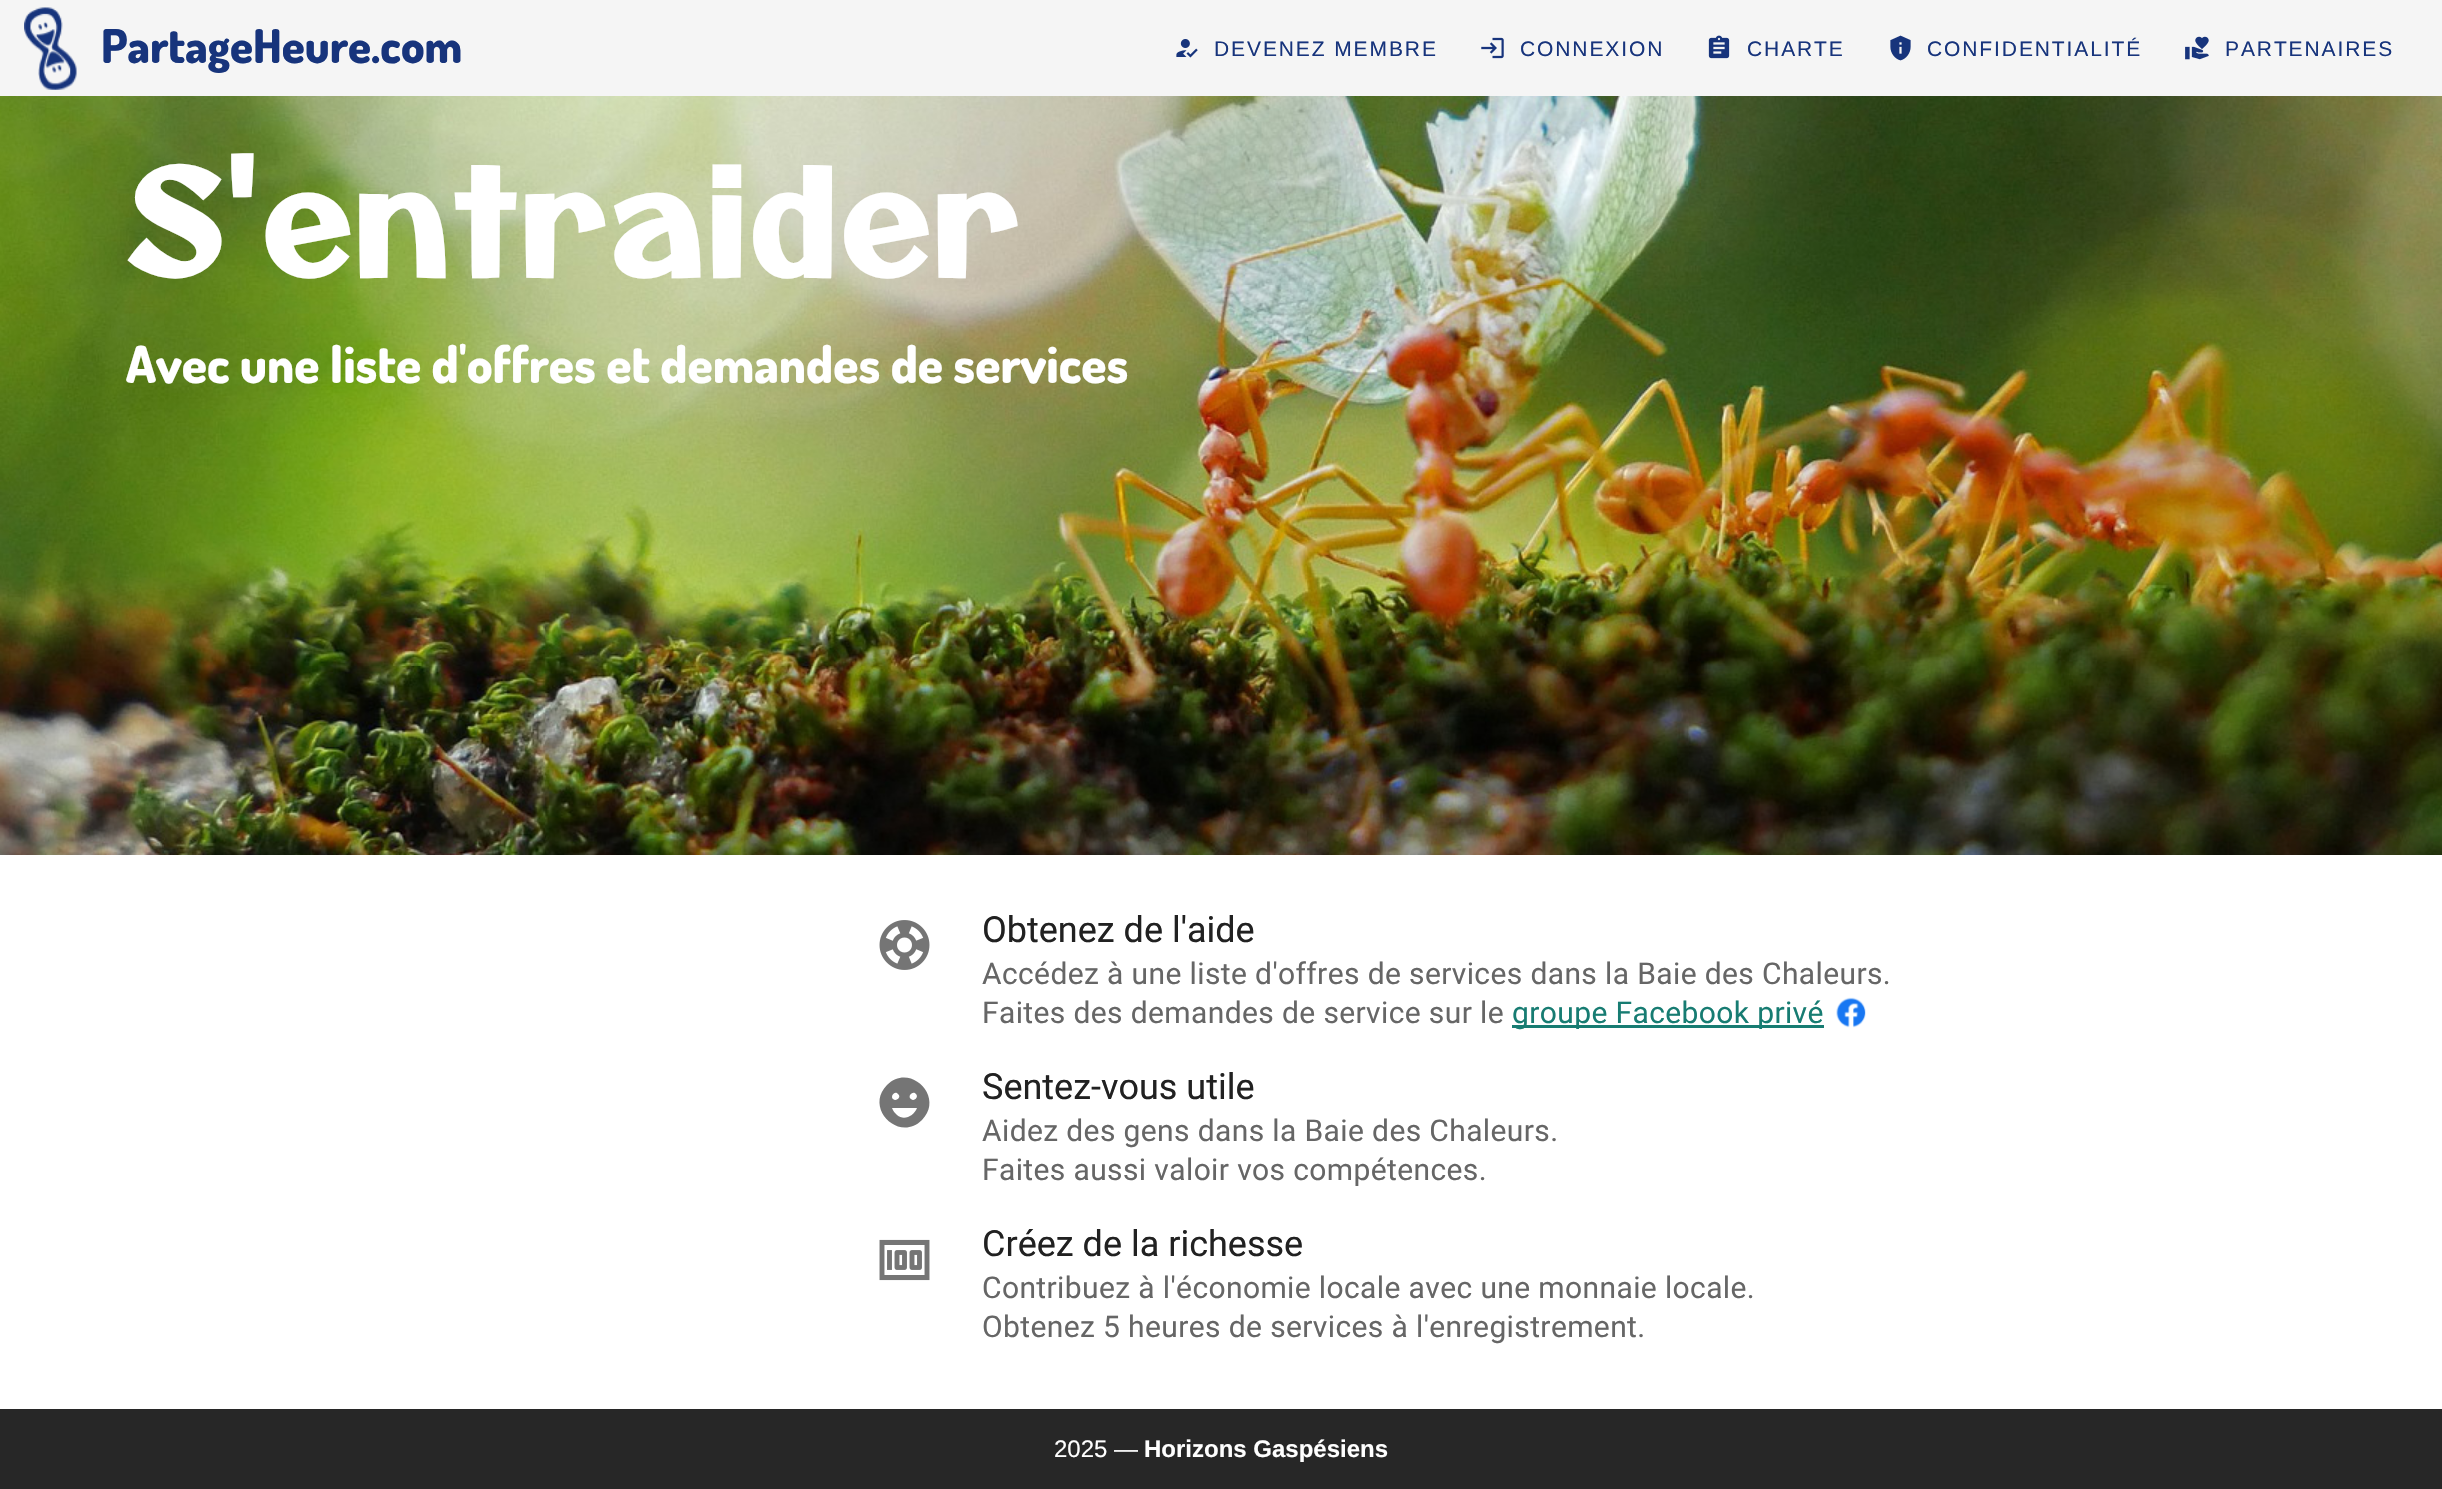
void draw(SkCanvas* canvas) {
	SkPaint paint;
	paint.setAntiAlias(true);
	auto spacedText = [&](const char* s, float x, float y, const SkFont& font, const SkPaint& ink, float letter, float word) {
		std::vector<SkGlyphID> glyphs(font.countText(s, strlen(s), SkTextEncoding::kUTF8));
		std::vector<float> xs(glyphs.size());
		font.textToGlyphs(s, strlen(s), SkTextEncoding::kUTF8, glyphs);
		font.getXPos(glyphs, xs, x);
		float extra = 0;
		for (size_t i = 0; i < glyphs.size(); i++) {
			xs[i] += extra;
			extra += letter + word * (glyphs[i] == font.unicharToGlyph(' '));
		}
		canvas->drawTextBlob(SkTextBlob::MakeFromPosHGlyphs(glyphs, xs, y, font), 0, 0, ink);
	};
	auto svgPath = [&](const char* data, bool evenOdd = false) {
		SkPath result = *SkParsePath::FromSVGString(data);
		if (evenOdd) result.setFillType(SkPathFillType::kEvenOdd);
		return result;
	};
	canvas->clear(0xffffffff);
	paint.setColor(0xfff5f5f5);
	canvas->drawRect(SkRect::MakeXYWH(0, 0, 2442, 96), paint);
	canvas->drawImageRect(SkImages::DeferredFromEncodedData(SkData::MakeFromFileName("img1.png")), SkRect::MakeXYWH(24, 7, 53, 83), SkSamplingOptions());
	SkFont f1(fontMgr->matchFamilyStyle("Dosis", SkFontStyle(800, SkFontStyle::kNormal_Width, SkFontStyle::kUpright_Slant)), 46.5);
	f1.setSubpixel(true);
	paint.setColor(0xff17347c);
	canvas->drawString("PartageHeure.com", 101, 63, f1, paint);
	canvas->drawImageRect(SkImages::DeferredFromEncodedData(SkData::MakeFromFileName("img2.png")), SkRect::MakeXYWH(1176, 39, 22, 19), SkSamplingOptions());
	SkFont f2(fontMgr->matchFamilyStyle("Liberation Sans", SkFontStyle::Normal()), 21);
	f2.setSubpixel(true);
	spacedText("DEVENEZ MEMBRE", 1214, 56, f2, paint, 1.9, 0);
	canvas->drawImageRect(SkImages::DeferredFromEncodedData(SkData::MakeFromFileName("img3.png")), SkRect::MakeXYWH(1481, 37, 23, 22), SkSamplingOptions());
	spacedText("CONNEXION", 1520, 56, f2, paint, 1.9, 0);
	canvas->drawImageRect(SkImages::DeferredFromEncodedData(SkData::MakeFromFileName("img4.png")), SkRect::MakeXYWH(1708, 35, 22, 24), SkSamplingOptions());
	spacedText("CHARTE", 1747, 56, f2, paint, 1.9, 0);
	canvas->drawImageRect(SkImages::DeferredFromEncodedData(SkData::MakeFromFileName("img5.png")), SkRect::MakeXYWH(1890, 35, 21, 26), SkSamplingOptions());
	spacedText("CONFIDENTIALITÉ", 1927, 56, f2, paint, 1.9, 0);
	canvas->drawImageRect(SkImages::DeferredFromEncodedData(SkData::MakeFromFileName("img6.png")), SkRect::MakeXYWH(2185, 36, 24, 24), SkSamplingOptions());
	spacedText("PARTENAIRES", 2225, 56, f2, paint, 1.9, 0);
	canvas->drawImageRect(SkImages::DeferredFromEncodedData(SkData::MakeFromFileName("img7.png")), SkRect::MakeXYWH(0, 96, 2442, 759), SkSamplingOptions());
	SkFont f3(fontMgr->matchFamilyStyle("Otomanopee One", SkFontStyle::Bold()), 144);
	f3.setSubpixel(true);
	paint.setColor(0xffffffff);
	spacedText("S'entraider", 126, 278, f3, paint, 4.5, 0);
	SkFont f4(fontMgr->matchFamilyStyle("Dosis", SkFontStyle(800, SkFontStyle::kNormal_Width, SkFontStyle::kUpright_Slant)), 51);
	f4.setSubpixel(true);
	canvas->drawString("Avec une liste d'offres et demandes de services", 126, 383, f4, paint);
	canvas->drawImageRect(SkImages::DeferredFromEncodedData(SkData::MakeFromFileName("img8.png")), SkRect::MakeXYWH(879, 920, 51, 50), SkSamplingOptions());
	SkFont f5(fontMgr->matchFamilyStyle("Roboto", SkFontStyle::Normal()), 36);
	f5.setSubpixel(true);
	paint.setColor(0xff212121);
	canvas->drawString("Obtenez de l'aide", 982, 942, f5, paint);
	SkFont f6(fontMgr->matchFamilyStyle("Roboto", SkFontStyle::Normal()), 30);
	f6.setSubpixel(true);
	paint.setColor(0xff666666);
	spacedText("Accédez à une liste d'offres de services dans la Baie des Chaleurs.", 982, 984, f6, paint, 0.38, 0);
	spacedText("Faites des demandes de service sur le", 982, 1023, f6, paint, 0.38, 0);
	paint.setColor(0xff177c72);
	canvas->drawRect(SkRect::MakeXYWH(1512, 1025, 312, 3), paint);
	spacedText("groupe Facebook privé", 1512, 1023, f6, paint, 0.38, 0);
	canvas->drawImageRect(SkImages::DeferredFromEncodedData(SkData::MakeFromFileName("img9.png")), SkRect::MakeXYWH(1836, 997, 30, 31), SkSamplingOptions());
	paint.setColor(0xff757575);
	canvas->drawPath(svgPath("M911 1099C914 1102 919 1097 916 1094C913 1090 907 1096 911 1099ZM897 1115C904 1121 914 1116 917 1108H892C893 1111 895 1113 897 1115ZM898 1094C895 1090 890 1096 893 1099C896 1102 902 1097 898 1094ZM887 1085C910 1062 945 1097 922 1120C899 1143 864 1108 887 1085Z"), paint);
	paint.setColor(0xff212121);
	canvas->drawString("Sentez-vous utile", 982, 1099, f5, paint);
	paint.setColor(0xff666666);
	spacedText("Aidez des gens dans la Baie des Chaleurs.", 982, 1141, f6, paint, 0.38, 0);
	spacedText("Faites aussi valoir vos compétences.", 982, 1180, f6, paint, 0.38, 0);
	canvas->drawImageRect(SkImages::DeferredFromEncodedData(SkData::MakeFromFileName("img10.png")), SkRect::MakeXYWH(879, 1239, 51, 42), SkSamplingOptions());
	paint.setColor(0xff212121);
	canvas->drawString("Créez de la richesse", 982, 1256, f5, paint);
	paint.setColor(0xff666666);
	spacedText("Contribuez à l'économie locale avec une monnaie locale.", 982, 1298, f6, paint, 0.38, 0);
	spacedText("Obtenez 5 heures de services à l'enregistrement.", 982, 1337, f6, paint, 0.38, 0);
	paint.setColor(0xff272727);
	canvas->drawRect(SkRect::MakeXYWH(0, 1409, 2442, 80), paint);
	SkFont f7(fontMgr->matchFamilyStyle("Liberation Sans", SkFontStyle::Normal()), 24);
	f7.setSubpixel(true);
	paint.setColor(0xffffffff);
	canvas->drawString("2025 —", 1054, 1457, f7, paint);
	SkFont f8(fontMgr->matchFamilyStyle("Liberation Sans", SkFontStyle::Bold()), 24);
	f8.setSubpixel(true);
	canvas->drawString("Horizons Gaspésiens", 1144, 1457, f8, paint);
}
